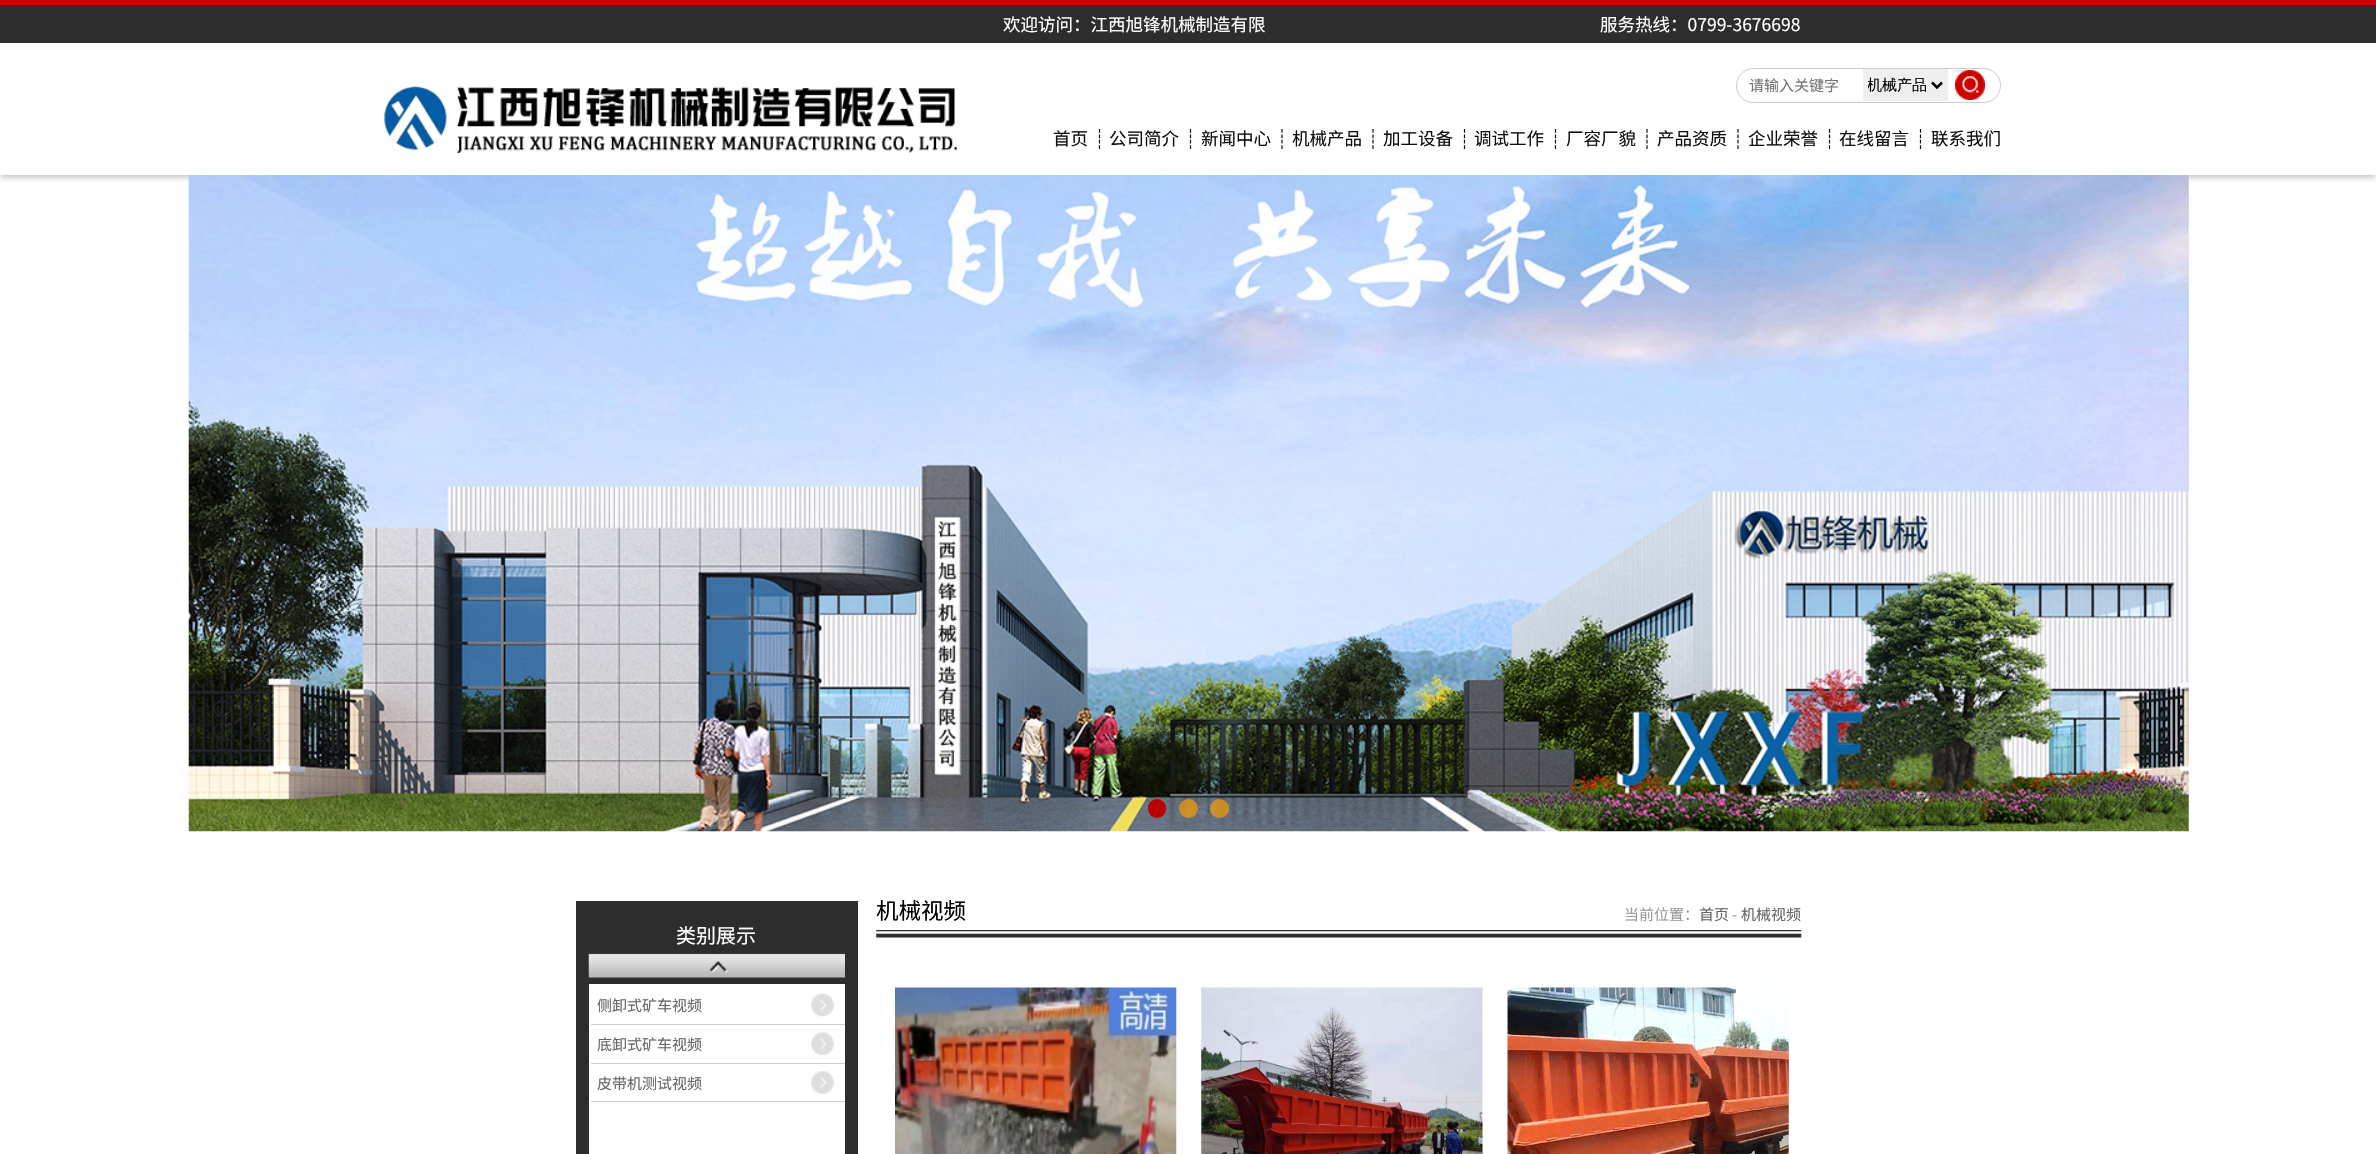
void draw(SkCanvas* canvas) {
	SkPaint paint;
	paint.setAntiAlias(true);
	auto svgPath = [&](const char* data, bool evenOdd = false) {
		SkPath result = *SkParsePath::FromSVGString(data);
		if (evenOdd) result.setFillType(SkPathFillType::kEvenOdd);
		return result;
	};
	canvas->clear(0xffffffff);
	canvas->save();
	canvas->clipRect(SkRect::MakeXYWH(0, 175, 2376, 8));
	paint.setColor(0xffcccccc);
	paint.setMaskFilter(SkMaskFilter::MakeBlur(kNormal_SkBlurStyle, 2.5));
	canvas->drawRect(SkRect::MakeXYWH(0, 3, 2376, 175), paint);
	paint.setMaskFilter(nullptr);
	canvas->restore();
	paint.setColor(0xff2d2d2d);
	canvas->drawRect(SkRect::MakeXYWH(0, 5, 2376, 38), paint);
	paint.setColor(0xffcd0000);
	canvas->drawRect(SkRect::MakeXYWH(0, 0, 2376, 5), paint);
	SkFont f1(fontMgr->matchFamilyStyle("Noto Sans CJK SC", SkFontStyle::Normal()), 17.5);
	f1.setSubpixel(true);
	paint.setColor(0xffffffff);
	canvas->drawString("欢迎访问：江西旭锋机械制造有限", 1003, 31, f1, paint);
	canvas->drawString("服务热线：0799-3676698", 1600, 31, f1, paint);
	canvas->drawImageRect(SkImages::DeferredFromEncodedData(SkData::MakeFromFileName("img1.png")), SkRect::MakeXYWH(384, 85, 573, 69), SkSamplingOptions());
	paint.setStroke(true);
	paint.setStrokeWidth(1);
	paint.setColor(0xffcccccc);
	canvas->drawRoundRect(SkRect::MakeXYWH(1736.5, 68.5, 264, 34), 17, 17, paint);
	paint.setStroke(false);
	paint.setColor(0xffffffff);
	canvas->drawRect(SkRect::MakeXYWH(1750, 69, 3, 1), paint);
	SkFont f2(fontMgr->matchFamilyStyle("Noto Sans CJK SC", SkFontStyle::Normal()), 15);
	f2.setSubpixel(true);
	paint.setColor(0xff757575);
	canvas->drawString("请输入关键字", 1749, 91, f2, paint);
	paint.setColor(0xffefefef);
	canvas->drawRect(SkRect::MakeXYWH(1863, 69, 85, 32), paint);
	paint.setStroke(true);
	paint.setStrokeWidth(2.5);
	paint.setColor(0xff000000);
	canvas->drawPath(svgPath("M1932 82.5L1937 87.5L1942 82.5"), paint);
	canvas->save();
	canvas->clipRect(SkRect::MakeXYWH(1868, 75, 60, 20));
	SkFont f3(fontMgr->matchFamilyStyle("WenQuanYi Zen Hei", SkFontStyle(500, SkFontStyle::kNormal_Width, SkFontStyle::kUpright_Slant)), 15);
	f3.setSubpixel(true);
	paint.setStroke(false);
	canvas->drawString("机械产品", 1867, 90, f3, paint);
	canvas->restore();
	canvas->drawImageRect(SkImages::DeferredFromEncodedData(SkData::MakeFromFileName("img2.png")), SkRect::MakeXYWH(1955, 70, 30, 30), SkSamplingOptions());
	paint.setStroke(true);
	paint.setStrokeWidth(1.2);
	paint.setColor(0xff0f0f0f);
	paint.setPathEffect(SkDashPathEffect::Make({{3.75f, 1.66f}}, 0));
	canvas->drawPath(svgPath("M1099.5 129V149"), paint);
	paint.setPathEffect(nullptr);
	paint.setStroke(false);
	canvas->drawString("首页", 1053, 145, f1, paint);
	paint.setStroke(true);
	paint.setPathEffect(SkDashPathEffect::Make({{3.75f, 1.66f}}, 0));
	canvas->drawPath(svgPath("M1190.5 129V149"), paint);
	paint.setPathEffect(nullptr);
	paint.setStroke(false);
	canvas->drawString("公司简介", 1109, 145, f1, paint);
	paint.setStroke(true);
	paint.setPathEffect(SkDashPathEffect::Make({{3.75f, 1.66f}}, 0));
	canvas->drawPath(svgPath("M1282 129V149"), paint);
	paint.setPathEffect(nullptr);
	paint.setStroke(false);
	canvas->drawString("新闻中心", 1201, 145, f1, paint);
	paint.setStroke(true);
	paint.setPathEffect(SkDashPathEffect::Make({{3.75f, 1.66f}}, 0));
	canvas->drawPath(svgPath("M1373 129V149"), paint);
	paint.setPathEffect(nullptr);
	paint.setStroke(false);
	canvas->drawString("机械产品", 1292, 145, f1, paint);
	paint.setStroke(true);
	paint.setPathEffect(SkDashPathEffect::Make({{3.75f, 1.66f}}, 0));
	canvas->drawPath(svgPath("M1464.5 129V149"), paint);
	paint.setPathEffect(nullptr);
	paint.setStroke(false);
	canvas->drawString("加工设备", 1383, 145, f1, paint);
	paint.setStroke(true);
	paint.setPathEffect(SkDashPathEffect::Make({{3.75f, 1.66f}}, 0));
	canvas->drawPath(svgPath("M1555.5 129V149"), paint);
	paint.setPathEffect(nullptr);
	paint.setStroke(false);
	canvas->drawString("调试工作", 1474, 145, f1, paint);
	paint.setStroke(true);
	paint.setPathEffect(SkDashPathEffect::Make({{3.75f, 1.66f}}, 0));
	canvas->drawPath(svgPath("M1647 129V149"), paint);
	paint.setPathEffect(nullptr);
	paint.setStroke(false);
	canvas->drawString("厂容厂貌", 1566, 145, f1, paint);
	paint.setStroke(true);
	paint.setPathEffect(SkDashPathEffect::Make({{3.75f, 1.66f}}, 0));
	canvas->drawPath(svgPath("M1738 129V149"), paint);
	paint.setPathEffect(nullptr);
	paint.setStroke(false);
	canvas->drawString("产品资质", 1657, 145, f1, paint);
	paint.setStroke(true);
	paint.setPathEffect(SkDashPathEffect::Make({{3.75f, 1.66f}}, 0));
	canvas->drawPath(svgPath("M1829.5 129V149"), paint);
	paint.setPathEffect(nullptr);
	paint.setStroke(false);
	canvas->drawString("企业荣誉", 1748, 145, f1, paint);
	paint.setStroke(true);
	paint.setPathEffect(SkDashPathEffect::Make({{3.75f, 1.66f}}, 0));
	canvas->drawPath(svgPath("M1920.5 129V149"), paint);
	paint.setPathEffect(nullptr);
	paint.setStroke(false);
	canvas->drawString("在线留言", 1839, 145, f1, paint);
	canvas->drawString("联系我们", 1931, 145, f1, paint);
	canvas->drawImageRect(SkImages::DeferredFromEncodedData(SkData::MakeFromFileName("img3.png")), SkRect::MakeXYWH(188, 175, 2001, 657), SkSamplingOptions());
	paint.setColor(0xffbb0000);
	canvas->drawRoundRect(SkRect::MakeXYWH(1148, 799, 18, 19), 9, 9, paint);
	paint.setColor(0xbfef9a0c);
	canvas->drawCircle(1188.5, 808.5, 9.5, paint);
	canvas->drawCircle(1219.5, 808.5, 9.5, paint);
	canvas->drawImageRect(SkImages::DeferredFromEncodedData(SkData::MakeFromFileName("img4.png")), SkRect::MakeXYWH(876, 930, 926, 8), SkSamplingOptions());
	SkFont f4(fontMgr->matchFamilyStyle("Noto Sans CJK SC", SkFontStyle::Normal()), 22.5);
	f4.setSubpixel(true);
	paint.setColor(0xff000000);
	canvas->drawString("机械视频", 876, 919, f4, paint);
	paint.setColor(0xff999999);
	canvas->drawString("当前位置：", 1624, 920, f2, paint);
	paint.setColor(0xff666666);
	canvas->drawString("首页", 1699, 920, f2, paint);
	paint.setColor(0xff999999);
	canvas->drawString("-", 1732, 920, f2, paint);
	paint.setColor(0xff666666);
	canvas->drawString("机械视频", 1741, 920, f2, paint);
	canvas->drawImageRect(SkImages::DeferredFromEncodedData(SkData::MakeFromFileName("img5.png")), SkRect::MakeXYWH(895, 987, 282, 167), SkSamplingOptions());
	canvas->drawImageRect(SkImages::DeferredFromEncodedData(SkData::MakeFromFileName("img6.png")), SkRect::MakeXYWH(1201, 987, 282, 167), SkSamplingOptions());
	canvas->drawImageRect(SkImages::DeferredFromEncodedData(SkData::MakeFromFileName("img7.png")), SkRect::MakeXYWH(1507, 987, 282, 167), SkSamplingOptions());
	paint.setColor(0xff2d2d2d);
	canvas->drawRect(SkRect::MakeXYWH(576, 901, 282, 253), paint);
	SkFont f5(fontMgr->matchFamilyStyle("Noto Sans CJK SC", SkFontStyle::Normal()), 20);
	f5.setSubpixel(true);
	paint.setColor(0xffffffff);
	canvas->drawString("类别展示", 676, 943, f5, paint);
	canvas->drawImageRect(SkImages::DeferredFromEncodedData(SkData::MakeFromFileName("img8.png")), SkRect::MakeXYWH(588, 953, 257, 25), SkSamplingOptions());
	canvas->drawRect(SkRect::MakeXYWH(589, 984, 256, 170), paint);
	paint.setColor(0xffcccccc);
	canvas->drawRect(SkRect::MakeXYWH(591, 1024, 254, 1), paint);
	canvas->drawImageRect(SkImages::DeferredFromEncodedData(SkData::MakeFromFileName("img9.png")), SkRect::MakeXYWH(811, 993, 23, 24), SkSamplingOptions());
	paint.setColor(0xff666666);
	canvas->drawString("侧卸式矿车视频", 597, 1011, f2, paint);
	paint.setColor(0xffcccccc);
	canvas->drawRect(SkRect::MakeXYWH(591, 1063, 254, 1), paint);
	canvas->drawImageRect(SkImages::DeferredFromEncodedData(SkData::MakeFromFileName("img10.png")), SkRect::MakeXYWH(811, 1032, 23, 23), SkSamplingOptions());
	paint.setColor(0xff666666);
	canvas->drawString("底卸式矿车视频", 597, 1050, f2, paint);
	paint.setColor(0xffcccccc);
	canvas->drawRect(SkRect::MakeXYWH(591, 1101, 254, 1), paint);
	canvas->drawImageRect(SkImages::DeferredFromEncodedData(SkData::MakeFromFileName("img11.png")), SkRect::MakeXYWH(811, 1071, 23, 23), SkSamplingOptions());
	paint.setColor(0xff666666);
	canvas->drawString("皮带机测试视频", 597, 1089, f2, paint);
}
